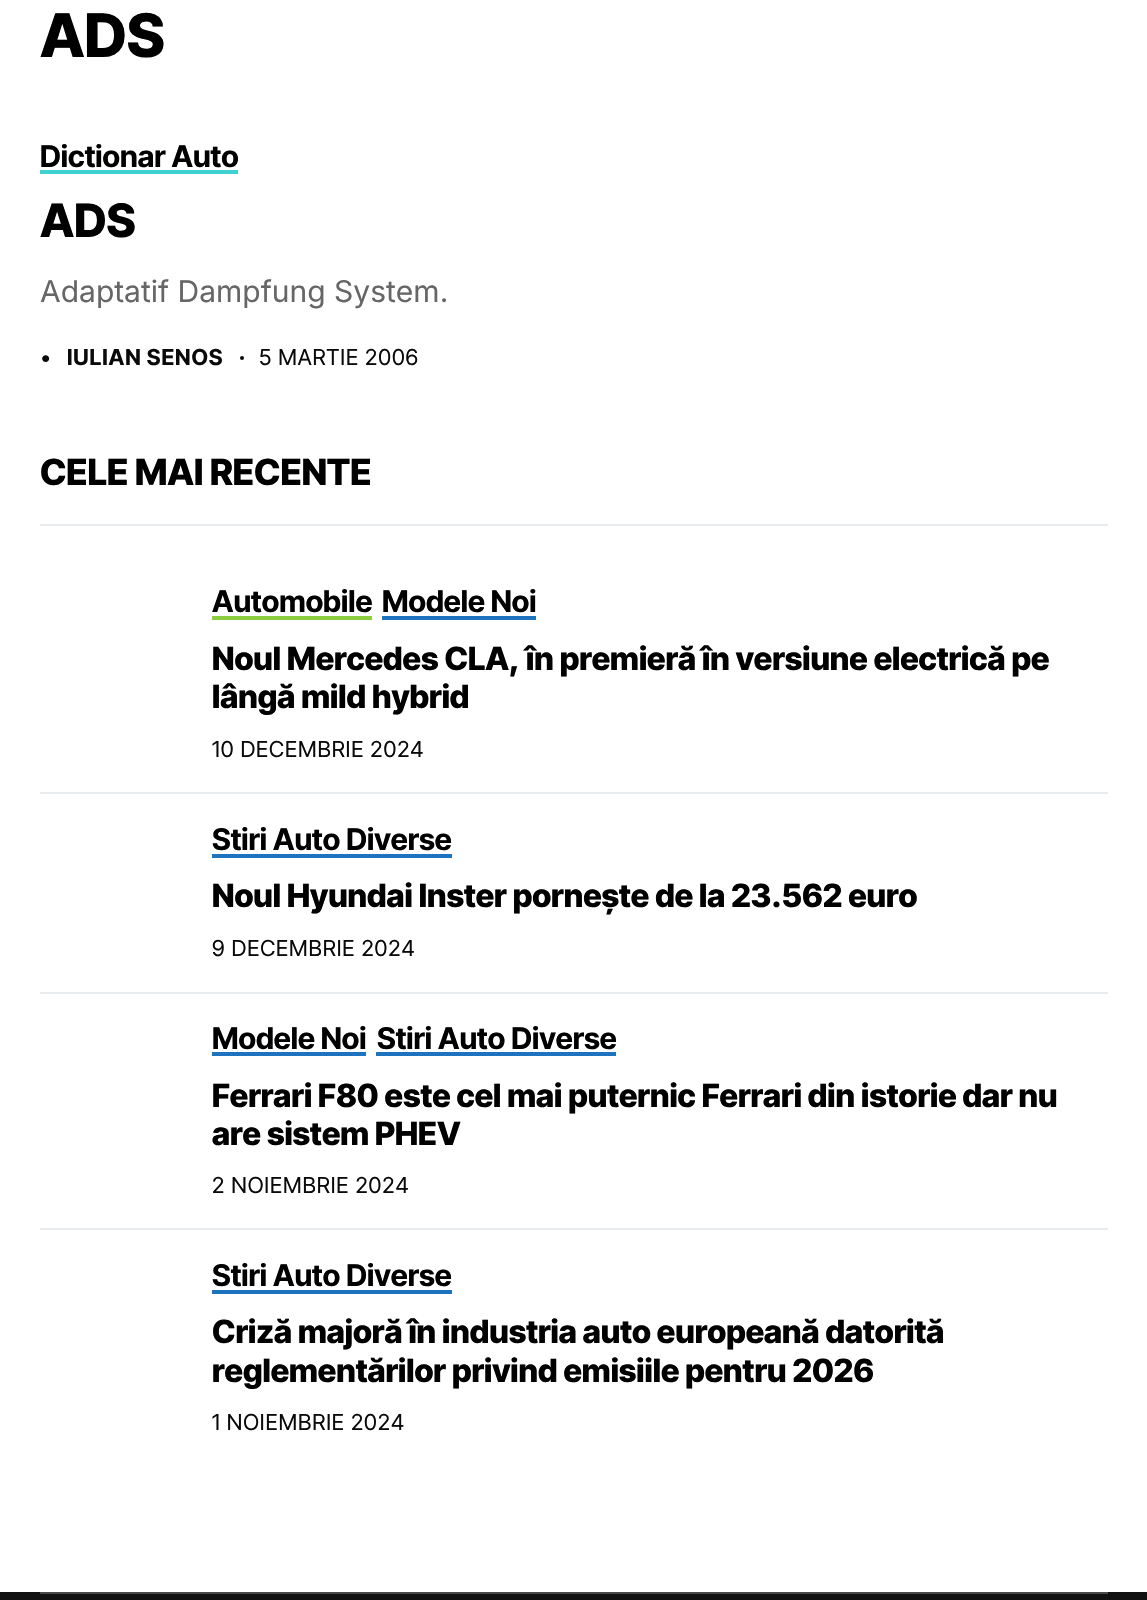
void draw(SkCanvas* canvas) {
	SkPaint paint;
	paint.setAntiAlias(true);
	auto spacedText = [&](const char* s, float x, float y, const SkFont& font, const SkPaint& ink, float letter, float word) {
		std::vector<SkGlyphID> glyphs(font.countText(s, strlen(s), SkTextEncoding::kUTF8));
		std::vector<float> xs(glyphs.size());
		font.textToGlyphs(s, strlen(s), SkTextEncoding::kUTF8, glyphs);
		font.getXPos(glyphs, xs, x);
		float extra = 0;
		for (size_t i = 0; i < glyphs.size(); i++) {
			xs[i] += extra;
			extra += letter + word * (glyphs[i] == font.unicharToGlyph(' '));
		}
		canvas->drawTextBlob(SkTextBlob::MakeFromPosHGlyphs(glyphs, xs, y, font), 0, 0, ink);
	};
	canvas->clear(0xffffffff);
	SkFont f1(fontMgr->matchFamilyStyle("Inter Tight", SkFontStyle(800, SkFontStyle::kNormal_Width, SkFontStyle::kUpright_Slant)), 60);
	f1.setSubpixel(true);
	paint.setColor(0xff000000);
	canvas->drawString("ADS", 40, 57, f1, paint);
	SkFont f2(fontMgr->matchFamilyStyle("Inter Tight", SkFontStyle::Bold()), 30);
	f2.setSubpixel(true);
	canvas->drawString("Dictionar Auto", 40, 167, f2, paint);
	paint.setColor(0xff40d1d1);
	canvas->drawRect(SkRect::MakeXYWH(40, 170, 198, 4), paint);
	SkFont f3(fontMgr->matchFamilyStyle("Inter Tight", SkFontStyle(800, SkFontStyle::kNormal_Width, SkFontStyle::kUpright_Slant)), 46);
	f3.setSubpixel(true);
	paint.setColor(0xff000000);
	canvas->drawString("ADS", 40, 237, f3, paint);
	SkFont f4(fontMgr->matchFamilyStyle("Inter", SkFontStyle::Normal()), 30);
	f4.setSubpixel(true);
	paint.setColor(0xff666666);
	canvas->drawString("Adaptatif Dampfung System.", 40, 302, f4, paint);
	SkFont f5(fontMgr->matchFamilyStyle("Inter Tight", SkFontStyle::Normal()), 22);
	f5.setSubpixel(true);
	paint.setColor(0xff0a0a0a);
	spacedText("•", 40, 365, f5, paint, 0.9, 0);
	SkFont f6(fontMgr->matchFamilyStyle("Inter Tight", SkFontStyle::Bold()), 22);
	f6.setSubpixel(true);
	spacedText("IULIAN SENOS", 67, 365, f6, paint, 0.9, 0);
	canvas->drawCircle(242, 358, 2, paint);
	spacedText("5 MARTIE 2006", 259, 365, f5, paint, 0.9, 0);
	paint.setColor(0xffe9ecef);
	canvas->drawRect(SkRect::MakeXYWH(40, 524, 1068, 2), paint);
	SkFont f7(fontMgr->matchFamilyStyle("Inter Tight", SkFontStyle(800, SkFontStyle::kNormal_Width, SkFontStyle::kUpright_Slant)), 36);
	f7.setSubpixel(true);
	paint.setColor(0xff000000);
	canvas->drawString("CELE MAI RECENTE", 40, 485, f7, paint);
	canvas->drawString("Automobile", 212, 612, f2, paint);
	paint.setColor(0xff8ccc3f);
	canvas->drawRect(SkRect::MakeXYWH(212, 616, 160, 4), paint);
	paint.setColor(0xff000000);
	canvas->drawString("Modele Noi", 382, 612, f2, paint);
	paint.setColor(0xff1e73be);
	canvas->drawRect(SkRect::MakeXYWH(382, 616, 154, 4), paint);
	SkFont f8(fontMgr->matchFamilyStyle("Inter Tight", SkFontStyle(800, SkFontStyle::kNormal_Width, SkFontStyle::kUpright_Slant)), 32);
	f8.setSubpixel(true);
	paint.setColor(0xff000000);
	canvas->drawString("Noul Mercedes CLA, în premieră în versiune electrică pe", 212, 670, f8, paint);
	canvas->drawString("lângă mild hybrid", 212, 708, f8, paint);
	paint.setColor(0xff0a0a0a);
	spacedText("10 DECEMBRIE 2024", 212, 757, f5, paint, 0.9, 0);
	paint.setColor(0xffe9ecef);
	canvas->drawRect(SkRect::MakeXYWH(40, 792, 1068, 2), paint);
	paint.setColor(0xff000000);
	canvas->drawString("Stiri Auto Diverse", 212, 850, f2, paint);
	paint.setColor(0xff1e73be);
	canvas->drawRect(SkRect::MakeXYWH(212, 854, 240, 4), paint);
	paint.setColor(0xff000000);
	canvas->drawString("Noul Hyundai Inster pornește de la 23.562 euro", 212, 907, f8, paint);
	paint.setColor(0xff0a0a0a);
	spacedText("9 DECEMBRIE 2024", 212, 956, f5, paint, 0.9, 0);
	paint.setColor(0xffe9ecef);
	canvas->drawRect(SkRect::MakeXYWH(40, 992, 1068, 2), paint);
	paint.setColor(0xff000000);
	canvas->drawString("Modele Noi", 212, 1049, f2, paint);
	paint.setColor(0xff1e73be);
	canvas->drawRect(SkRect::MakeXYWH(212, 1052, 154, 4), paint);
	paint.setColor(0xff000000);
	canvas->drawString("Stiri Auto Diverse", 377, 1049, f2, paint);
	paint.setColor(0xff1e73be);
	canvas->drawRect(SkRect::MakeXYWH(376, 1052, 240, 4), paint);
	paint.setColor(0xff000000);
	canvas->drawString("Ferrari F80 este cel mai puternic Ferrari din istorie dar nu", 212, 1107, f8, paint);
	canvas->drawString("are sistem PHEV", 212, 1145, f8, paint);
	paint.setColor(0xff0a0a0a);
	spacedText("2 NOIEMBRIE 2024", 212, 1193, f5, paint, 0.9, 0);
	paint.setColor(0xffe9ecef);
	canvas->drawRect(SkRect::MakeXYWH(40, 1228, 1068, 2), paint);
	paint.setColor(0xff000000);
	canvas->drawString("Stiri Auto Diverse", 212, 1286, f2, paint);
	paint.setColor(0xff1e73be);
	canvas->drawRect(SkRect::MakeXYWH(212, 1290, 240, 4), paint);
	paint.setColor(0xff000000);
	canvas->drawString("Criză majoră în industria auto europeană datorită", 212, 1343, f8, paint);
	canvas->drawString("reglementărilor privind emisiile pentru 2026", 212, 1382, f8, paint);
	paint.setColor(0xff0a0a0a);
	spacedText("1 NOIEMBRIE 2024", 212, 1430, f5, paint, 0.9, 0);
	paint.setColor(0xff111111);
	canvas->drawRect(SkRect::MakeXYWH(0, 1592, 1147, 8), paint);
	paint.setColor(0xff49494b);
	canvas->drawRect(SkRect::MakeXYWH(40, 1592, 1068, 2), paint);
}
